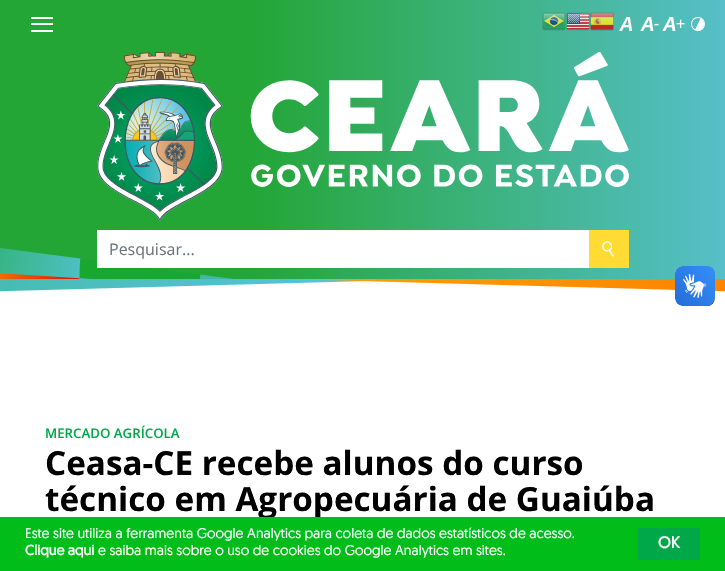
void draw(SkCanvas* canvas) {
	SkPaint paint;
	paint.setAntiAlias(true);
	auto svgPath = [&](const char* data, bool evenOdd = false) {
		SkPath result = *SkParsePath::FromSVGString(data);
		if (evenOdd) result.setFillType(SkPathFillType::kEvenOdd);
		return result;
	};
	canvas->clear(0xffffffff);
	{
		const SkColor colors[] = {0xff56bfc9, 0xff24a637};
		const float stops[] = {0, 0.65};
		const SkPoint ends[] = {{725, 161}, {0, 161}};
		paint.setShader(SkGradientShader::MakeLinear(ends, colors, stops, 2, SkTileMode::kClamp));
		paint.setAlpha(255);
	}
	canvas->drawRect(SkRect::MakeXYWH(0, 0, 725, 279), paint);
	canvas->drawImageRect(SkImages::DeferredFromEncodedData(SkData::MakeFromFileName("img1.png")), SkRect::MakeXYWH(0, 248, 233, 31), SkSamplingOptions());
	paint.setShader(nullptr);
	paint.setColor(0xffffffff);
	canvas->drawRect(SkRect::MakeXYWH(31, 17, 22, 2), paint);
	canvas->drawRect(SkRect::MakeXYWH(31, 23, 22, 2), paint);
	canvas->drawRect(SkRect::MakeXYWH(31, 30, 22, 2), paint);
	canvas->drawImageRect(SkImages::DeferredFromEncodedData(SkData::MakeFromFileName("img2.png")), SkRect::MakeXYWH(542, 12, 24, 19), SkSamplingOptions());
	canvas->drawImageRect(SkImages::DeferredFromEncodedData(SkData::MakeFromFileName("img3.png")), SkRect::MakeXYWH(566, 12, 24, 19), SkSamplingOptions());
	canvas->drawImageRect(SkImages::DeferredFromEncodedData(SkData::MakeFromFileName("img4.png")), SkRect::MakeXYWH(590, 12, 24, 19), SkSamplingOptions());
	canvas->drawImageRect(SkImages::DeferredFromEncodedData(SkData::MakeFromFileName("img5.png")), SkRect::MakeXYWH(619, 17, 14, 14), SkSamplingOptions());
	canvas->drawImageRect(SkImages::DeferredFromEncodedData(SkData::MakeFromFileName("img6.png")), SkRect::MakeXYWH(640, 17, 19, 14), SkSamplingOptions());
	canvas->drawImageRect(SkImages::DeferredFromEncodedData(SkData::MakeFromFileName("img7.png")), SkRect::MakeXYWH(662, 17, 23, 14), SkSamplingOptions());
	canvas->drawImageRect(SkImages::DeferredFromEncodedData(SkData::MakeFromFileName("img8.png")), SkRect::MakeXYWH(691, 17, 14, 14), SkSamplingOptions());
	canvas->drawImageRect(SkImages::DeferredFromEncodedData(SkData::MakeFromFileName("img9.png")), SkRect::MakeXYWH(97, 52, 532, 169), SkSamplingOptions());
	canvas->drawRect(SkRect::MakeXYWH(97, 230, 492, 38), paint);
	SkFont f1(fontMgr->matchFamilyStyle("Open Sans", SkFontStyle::Normal()), 16);
	f1.setSubpixel(true);
	paint.setColor(0xff6c757d);
	canvas->drawString("Pesquisar...", 109, 255, f1, paint);
	paint.setColor(0xffffdb33);
	canvas->drawRect(SkRect::MakeXYWH(589, 230, 40, 38), paint);
	canvas->drawImageRect(SkImages::DeferredFromEncodedData(SkData::MakeFromFileName("img10.png")), SkRect::MakeXYWH(601, 241, 13, 16), SkSamplingOptions());
	{
		const SkColor colors[] = {0xff18a82f, 0xff5bc4e8};
		const float stops[] = {0, 1};
		const SkPoint ends[] = {{-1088, 315}, {439, 315}};
		paint.setShader(SkGradientShader::MakeLinear(ends, colors, stops, 2, SkTileMode::kClamp));
		paint.setAlpha(255);
	}
	canvas->drawPath(svgPath("M-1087 279V322L439 279Z"), paint);
	{
		const SkColor colors[] = {0xfff83d00, 0xffffa100};
		const float stops[] = {0, 1};
		const SkPoint ends[] = {{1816, 286}, {289, 286}};
		paint.setShader(SkGradientShader::MakeLinear(ends, colors, stops, 2, SkTileMode::kClamp));
		paint.setAlpha(255);
	}
	canvas->drawPath(svgPath("M289 279L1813 322V279Z"), paint);
	SkFont f2(fontMgr->matchFamilyStyle("Open Sans", SkFontStyle(600, SkFontStyle::kNormal_Width, SkFontStyle::kUpright_Slant)), 13.25);
	f2.setSubpixel(true);
	paint.setShader(nullptr);
	paint.setColor(0xff00a84a);
	canvas->drawString("MERCADO AGRÍCOLA", 45, 438, f2, paint);
	SkFont f3(fontMgr->matchFamilyStyle("Open Sans", SkFontStyle::Bold()), 33.25);
	f3.setSubpixel(true);
	paint.setColor(0xff000000);
	canvas->drawString("Ceasa-CE recebe alunos do curso", 45, 475, f3, paint);
	canvas->drawString("técnico em Agropecuária de Guaiúba", 45, 511, f3, paint);
	canvas->drawImageRect(SkImages::DeferredFromEncodedData(SkData::MakeFromFileName("img11.png")), SkRect::MakeXYWH(675, 266, 40, 40), SkSamplingOptions());
	canvas->drawImageRect(SkImages::DeferredFromEncodedData(SkData::MakeFromFileName("img12.png")), SkRect::MakeXYWH(675, 266, 40, 40), SkSamplingOptions());
	paint.setColor(0xff00bd19);
	canvas->drawRect(SkRect::MakeXYWH(0, 517, 725, 54), paint);
	SkFont f4(fontMgr->matchFamilyStyle("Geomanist", SkFontStyle::Normal()), 14);
	f4.setSubpixel(true);
	paint.setColor(0xffffffff);
	canvas->drawString("Este site utiliza a ferramenta Google Analytics para coleta de dados estatísticos de acesso.", 25, 538, f4, paint);
	SkFont f5(fontMgr->matchFamilyStyle("Geomanist", SkFontStyle::Bold()), 14);
	f5.setSubpixel(true);
	canvas->drawString("Clique aqui", 25, 555, f5, paint);
	canvas->drawString("e saiba mais sobre o uso de cookies do Google Analytics em sites.", 98, 555, f4, paint);
	paint.setColor(0xff00a84a);
	canvas->drawRect(SkRect::MakeXYWH(638, 528, 62, 32), paint);
	SkFont f6(fontMgr->matchFamilyStyle("Geomanist", SkFontStyle::Bold()), 16);
	f6.setSubpixel(true);
	paint.setColor(0xffffffff);
	canvas->drawString("OK", 658, 548, f6, paint);
}
